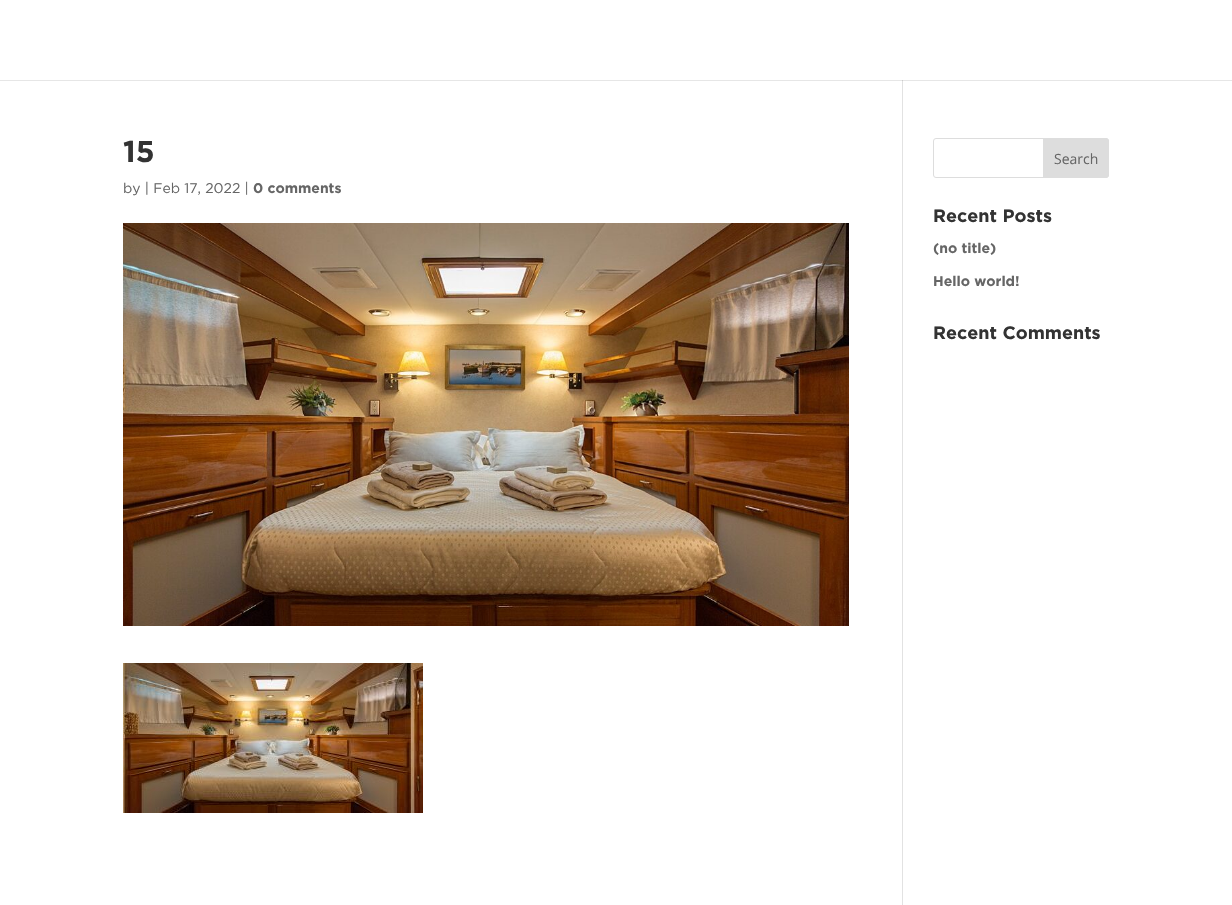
void draw(SkCanvas* canvas) {
	SkPaint paint;
	paint.setAntiAlias(true);
	auto svgPath = [&](const char* data, bool evenOdd = false) {
		SkPath result = *SkParsePath::FromSVGString(data);
		if (evenOdd) result.setFillType(SkPathFillType::kEvenOdd);
		return result;
	};
	canvas->clear(0xffffffff);
	paint.setColor(0xffe6e6e6);
	canvas->drawRect(SkRect::MakeXYWH(0, 80, 1232, 1), paint);
	paint.setColor(0xffe2e2e2);
	canvas->drawRect(SkRect::MakeXYWH(902, 80, 1, 825), paint);
	paint.setColor(0xffcbcbcb);
	canvas->drawRect(SkRect::MakeXYWH(902, 80, 1, 1), paint);
	SkFont f1(fontMgr->matchFamilyStyle("Gotham", SkFontStyle::Bold()), 30);
	f1.setSubpixel(true);
	paint.setColor(0xff333333);
	canvas->drawString("15", 123, 162, f1, paint);
	SkFont f2(fontMgr->matchFamilyStyle("Gotham", SkFontStyle::Normal()), 14);
	f2.setSubpixel(true);
	paint.setColor(0xff666666);
	canvas->drawString("by | Feb 17, 2022 |", 123, 193, f2, paint);
	SkFont f3(fontMgr->matchFamilyStyle("Gotham", SkFontStyle::Bold()), 14);
	f3.setSubpixel(true);
	canvas->drawString("0 comments", 253, 193, f3, paint);
	canvas->drawImageRect(SkImages::DeferredFromEncodedData(SkData::MakeFromFileName("img1.png")), SkRect::MakeXYWH(123, 223, 726, 403), SkSamplingOptions());
	canvas->drawImageRect(SkImages::DeferredFromEncodedData(SkData::MakeFromFileName("img2.png")), SkRect::MakeXYWH(123, 663, 300, 150), SkSamplingOptions());
	paint.setStroke(true);
	paint.setStrokeWidth(1);
	paint.setColor(0xffdddddd);
	canvas->drawRoundRect(SkRect::MakeXYWH(933.5, 138.5, 175, 39), 2.5, 2.5, paint);
	paint.setStroke(false);
	canvas->drawPath(svgPath("M1043.5 138.5H1106C1107.5 138.5 1108.5 139.5 1108.5 141V175C1108.5 176.5 1107.5 177.5 1106 177.5H1043.5Z"), paint);
	paint.setStroke(true);
	canvas->drawPath(svgPath("M1043.5 138.5H1106C1107.5 138.5 1108.5 139.5 1108.5 141V175C1108.5 176.5 1107.5 177.5 1106 177.5H1043.5Z"), paint);
	SkFont f4(fontMgr->matchFamilyStyle("Open Sans", SkFontStyle::Normal()), 14);
	f4.setSubpixel(true);
	paint.setStroke(false);
	paint.setColor(0xff666666);
	canvas->drawString("Search", 1054, 164, f4, paint);
	SkFont f5(fontMgr->matchFamilyStyle("Gotham", SkFontStyle::Bold()), 18);
	f5.setSubpixel(true);
	paint.setColor(0xff333333);
	canvas->drawString("Recent Posts", 933, 222, f5, paint);
	paint.setColor(0xff666666);
	canvas->drawString("(no title)", 933, 253, f3, paint);
	canvas->drawString("Hello world!", 933, 286, f3, paint);
	paint.setColor(0xff333333);
	canvas->drawString("Recent Comments", 933, 339, f5, paint);
}
